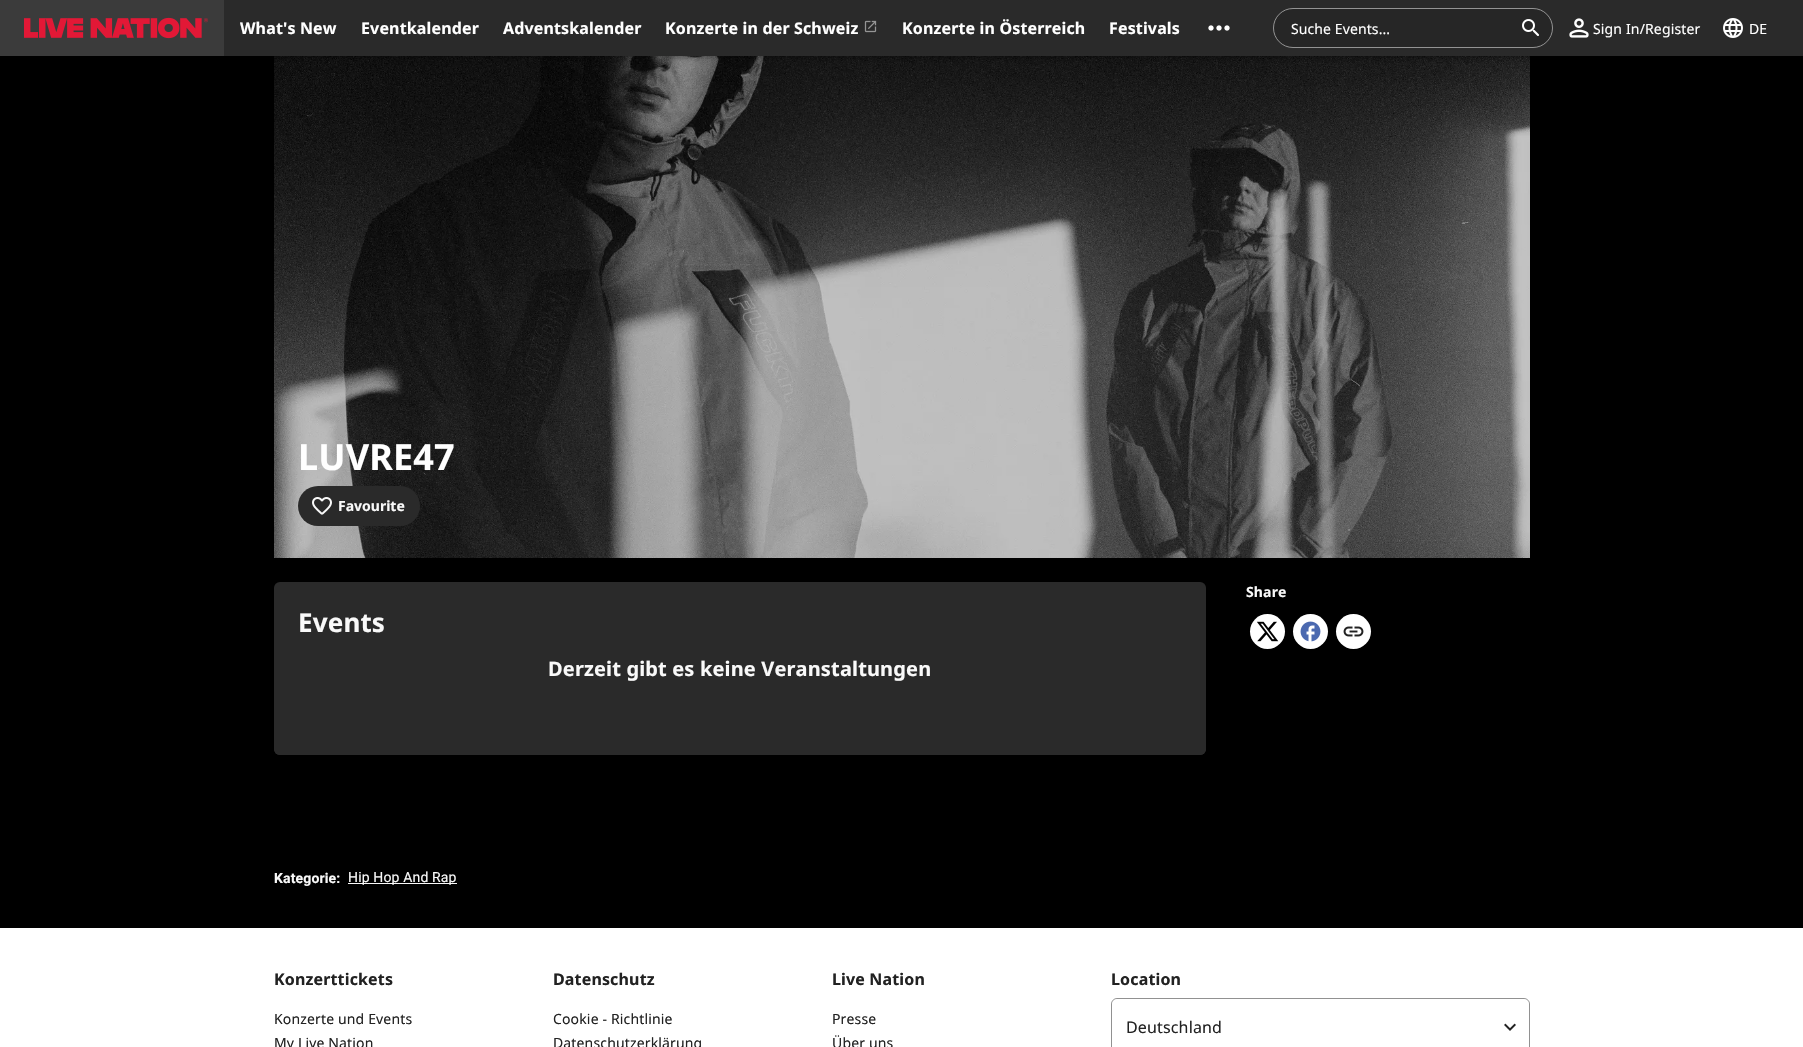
void draw(SkCanvas* canvas) {
	SkPaint paint;
	paint.setAntiAlias(true);
	auto spacedText = [&](const char* s, float x, float y, const SkFont& font, const SkPaint& ink, float letter, float word) {
		std::vector<SkGlyphID> glyphs(font.countText(s, strlen(s), SkTextEncoding::kUTF8));
		std::vector<float> xs(glyphs.size());
		font.textToGlyphs(s, strlen(s), SkTextEncoding::kUTF8, glyphs);
		font.getXPos(glyphs, xs, x);
		float extra = 0;
		for (size_t i = 0; i < glyphs.size(); i++) {
			xs[i] += extra;
			extra += letter + word * (glyphs[i] == font.unicharToGlyph(' '));
		}
		canvas->drawTextBlob(SkTextBlob::MakeFromPosHGlyphs(glyphs, xs, y, font), 0, 0, ink);
	};
	canvas->clear(0xff000000);
	canvas->drawImageRect(SkImages::DeferredFromEncodedData(SkData::MakeFromFileName("img7.png")), SkRect::MakeXYWH(274, 56, 1256, 502), SkSamplingOptions());
	paint.setColor(0x24000000);
	paint.setMaskFilter(SkMaskFilter::MakeBlur(kNormal_SkBlurStyle, 2.5));
	canvas->drawRect(SkRect::MakeXYWH(0, 4, 1803, 56), paint);
	paint.setMaskFilter(nullptr);
	paint.setColor(0x33000000);
	paint.setMaskFilter(SkMaskFilter::MakeBlur(kNormal_SkBlurStyle, 2));
	canvas->drawRect(SkRect::MakeXYWH(1, 3, 1801, 54), paint);
	paint.setMaskFilter(nullptr);
	paint.setColor(0xff2a2a2a);
	canvas->drawRect(SkRect::MakeXYWH(224, 0, 1579, 56), paint);
	paint.setColor(0xff3b3b3b);
	canvas->drawRect(SkRect::MakeXYWH(0, 0, 224, 56), paint);
	canvas->drawImageRect(SkImages::DeferredFromEncodedData(SkData::MakeFromFileName("img1.png")), SkRect::MakeXYWH(24, 17, 184, 22), SkSamplingOptions());
	SkFont f1(fontMgr->matchFamilyStyle("Noto Sans", SkFontStyle::Bold()), 16);
	f1.setSubpixel(true);
	paint.setColor(0xffffffff);
	spacedText("What's New", 240, 34, f1, paint, 0.15, 0);
	spacedText("Eventkalender", 361, 34, f1, paint, 0.15, 0);
	spacedText("Adventskalender", 503, 34, f1, paint, 0.15, 0);
	spacedText("Konzerte in der Schweiz", 665, 34, f1, paint, 0.15, 0);
	canvas->drawImageRect(SkImages::DeferredFromEncodedData(SkData::MakeFromFileName("img2.png")), SkRect::MakeXYWH(864, 20, 13, 13), SkSamplingOptions());
	spacedText("Konzerte in Österreich", 902, 34, f1, paint, 0.15, 0);
	spacedText("Festivals", 1109, 34, f1, paint, 0.15, 0);
	canvas->drawImageRect(SkImages::DeferredFromEncodedData(SkData::MakeFromFileName("img3.png")), SkRect::MakeXYWH(1208, 25, 22, 6), SkSamplingOptions());
	paint.setColor(0xff262626);
	canvas->drawRoundRect(SkRect::MakeXYWH(1273.5, 8.5, 279, 39), 19.5, 19.5, paint);
	paint.setStroke(true);
	paint.setStrokeWidth(1);
	paint.setColor(0xff939393);
	canvas->drawRoundRect(SkRect::MakeXYWH(1273.5, 8.5, 279, 39), 19.5, 19.5, paint);
	SkFont f2(fontMgr->matchFamilyStyle("Noto Sans", SkFontStyle::Normal()), 14);
	f2.setSubpixel(true);
	paint.setStroke(false);
	paint.setColor(0xffffffff);
	spacedText("Suche Events...", 1291, 34, f2, paint, 0.1, 0);
	canvas->drawImageRect(SkImages::DeferredFromEncodedData(SkData::MakeFromFileName("img4.png")), SkRect::MakeXYWH(1522, 19, 17, 17), SkSamplingOptions());
	canvas->drawImageRect(SkImages::DeferredFromEncodedData(SkData::MakeFromFileName("img5.png")), SkRect::MakeXYWH(1569, 18, 20, 20), SkSamplingOptions());
	spacedText("Sign In/Register", 1593, 34, f2, paint, 0.15, 0);
	canvas->drawImageRect(SkImages::DeferredFromEncodedData(SkData::MakeFromFileName("img6.png")), SkRect::MakeXYWH(1723, 18, 20, 20), SkSamplingOptions());
	spacedText("DE", 1749, 34, f2, paint, 0.1, 0);
	SkFont f3(fontMgr->matchFamilyStyle("Noto Sans", SkFontStyle::Bold()), 36);
	f3.setSubpixel(true);
	spacedText("LUVRE47", 298, 470, f3, paint, 0.15, 0);
	paint.setColor(0xff2a2a2a);
	canvas->drawRoundRect(SkRect::MakeXYWH(298, 486, 122, 40), 20, 20, paint);
	canvas->drawImageRect(SkImages::DeferredFromEncodedData(SkData::MakeFromFileName("img8.png")), SkRect::MakeXYWH(312, 497, 20, 18), SkSamplingOptions());
	SkFont f4(fontMgr->matchFamilyStyle("Noto Sans", SkFontStyle::Bold()), 14);
	f4.setSubpixel(true);
	paint.setColor(0xfff9f9f9);
	canvas->drawString("Favourite", 338, 511, f4, paint);
	spacedText("Share", 1246, 597, f4, paint, 0.15, 0);
	paint.setColor(0xffffffff);
	canvas->drawCircle(1267.5, 631.5, 17.5, paint);
	canvas->drawImageRect(SkImages::DeferredFromEncodedData(SkData::MakeFromFileName("img9.png")), SkRect::MakeXYWH(1257, 621, 22, 21), SkSamplingOptions());
	canvas->drawCircle(1310.5, 631.5, 17.5, paint);
	canvas->drawImageRect(SkImages::DeferredFromEncodedData(SkData::MakeFromFileName("img10.png")), SkRect::MakeXYWH(1300, 621, 21, 21), SkSamplingOptions());
	canvas->drawCircle(1353.5, 631.5, 17.5, paint);
	canvas->drawImageRect(SkImages::DeferredFromEncodedData(SkData::MakeFromFileName("img11.png")), SkRect::MakeXYWH(1343, 626, 21, 11), SkSamplingOptions());
	paint.setColor(0xff2a2a2a);
	canvas->drawRoundRect(SkRect::MakeXYWH(274, 582, 932, 173), 6, 6, paint);
	SkFont f5(fontMgr->matchFamilyStyle("Noto Sans", SkFontStyle::Bold()), 26);
	f5.setSubpixel(true);
	paint.setColor(0xfff9f9f9);
	spacedText("Events", 298, 632, f5, paint, 0.15, 0);
	paint.setColor(0xff2a2a2a);
	canvas->drawRoundRect(SkRect::MakeXYWH(274, 654, 932, 101), 6, 6, paint);
	SkFont f6(fontMgr->matchFamilyStyle("Noto Sans", SkFontStyle::Bold()), 20);
	f6.setSubpixel(true);
	paint.setColor(0xfff9f9f9);
	spacedText("Derzeit gibt es keine Veranstaltungen", 548, 676, f6, paint, 0.15, 0);
	SkFont f7(fontMgr->matchFamilyStyle("Roboto", SkFontStyle::Bold()), 14);
	f7.setSubpixel(true);
	spacedText("Kategorie:", 274, 883, f7, paint, 0.15, 0);
	canvas->drawRect(SkRect::MakeXYWH(348, 883, 109, 1), paint);
	SkFont f8(fontMgr->matchFamilyStyle("Roboto", SkFontStyle::Normal()), 14);
	f8.setSubpixel(true);
	spacedText("Hip Hop And Rap", 348, 882, f8, paint, 0.15, 0);
	paint.setColor(0xffffffff);
	canvas->drawRect(SkRect::MakeXYWH(0, 928, 1803, 119), paint);
	paint.setColor(0xff222222);
	spacedText("Konzerttickets", 274, 985, f1, paint, 0.15, 0);
	spacedText("Konzerte und Events", 274, 1024, f2, paint, 0.15, 0);
	spacedText("My Live Nation", 274, 1048, f2, paint, 0.15, 0);
	spacedText("Datenschutz", 553, 985, f1, paint, 0.15, 0);
	spacedText("Cookie - Richtlinie", 553, 1024, f2, paint, 0.15, 0);
	spacedText("Datenschutzerklärung", 553, 1048, f2, paint, 0.15, 0);
	spacedText("Live Nation", 832, 985, f1, paint, 0.15, 0);
	spacedText("Presse", 832, 1024, f2, paint, 0.15, 0);
	spacedText("Über uns", 832, 1048, f2, paint, 0.15, 0);
	spacedText("Location", 1111, 985, f1, paint, 0.15, 0);
	paint.setStroke(true);
	paint.setColor(0xff919191);
	canvas->drawRoundRect(SkRect::MakeXYWH(1111.5, 998.5, 418, 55), 5.5, 5.5, paint);
	paint.setStroke(false);
	paint.setColor(0xffffffff);
	canvas->drawRoundRect(SkRect::MakeXYWH(1112, 999, 417, 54), 6, 6, paint);
	SkFont f9(fontMgr->matchFamilyStyle("Noto Sans", SkFontStyle::Normal()), 16);
	f9.setSubpixel(true);
	paint.setColor(0xff222222);
	spacedText("Deutschland", 1126, 1033, f9, paint, 0.15, 0);
	canvas->drawImageRect(SkImages::DeferredFromEncodedData(SkData::MakeFromFileName("img12.png")), SkRect::MakeXYWH(1504, 1023, 12, 8), SkSamplingOptions());
}
